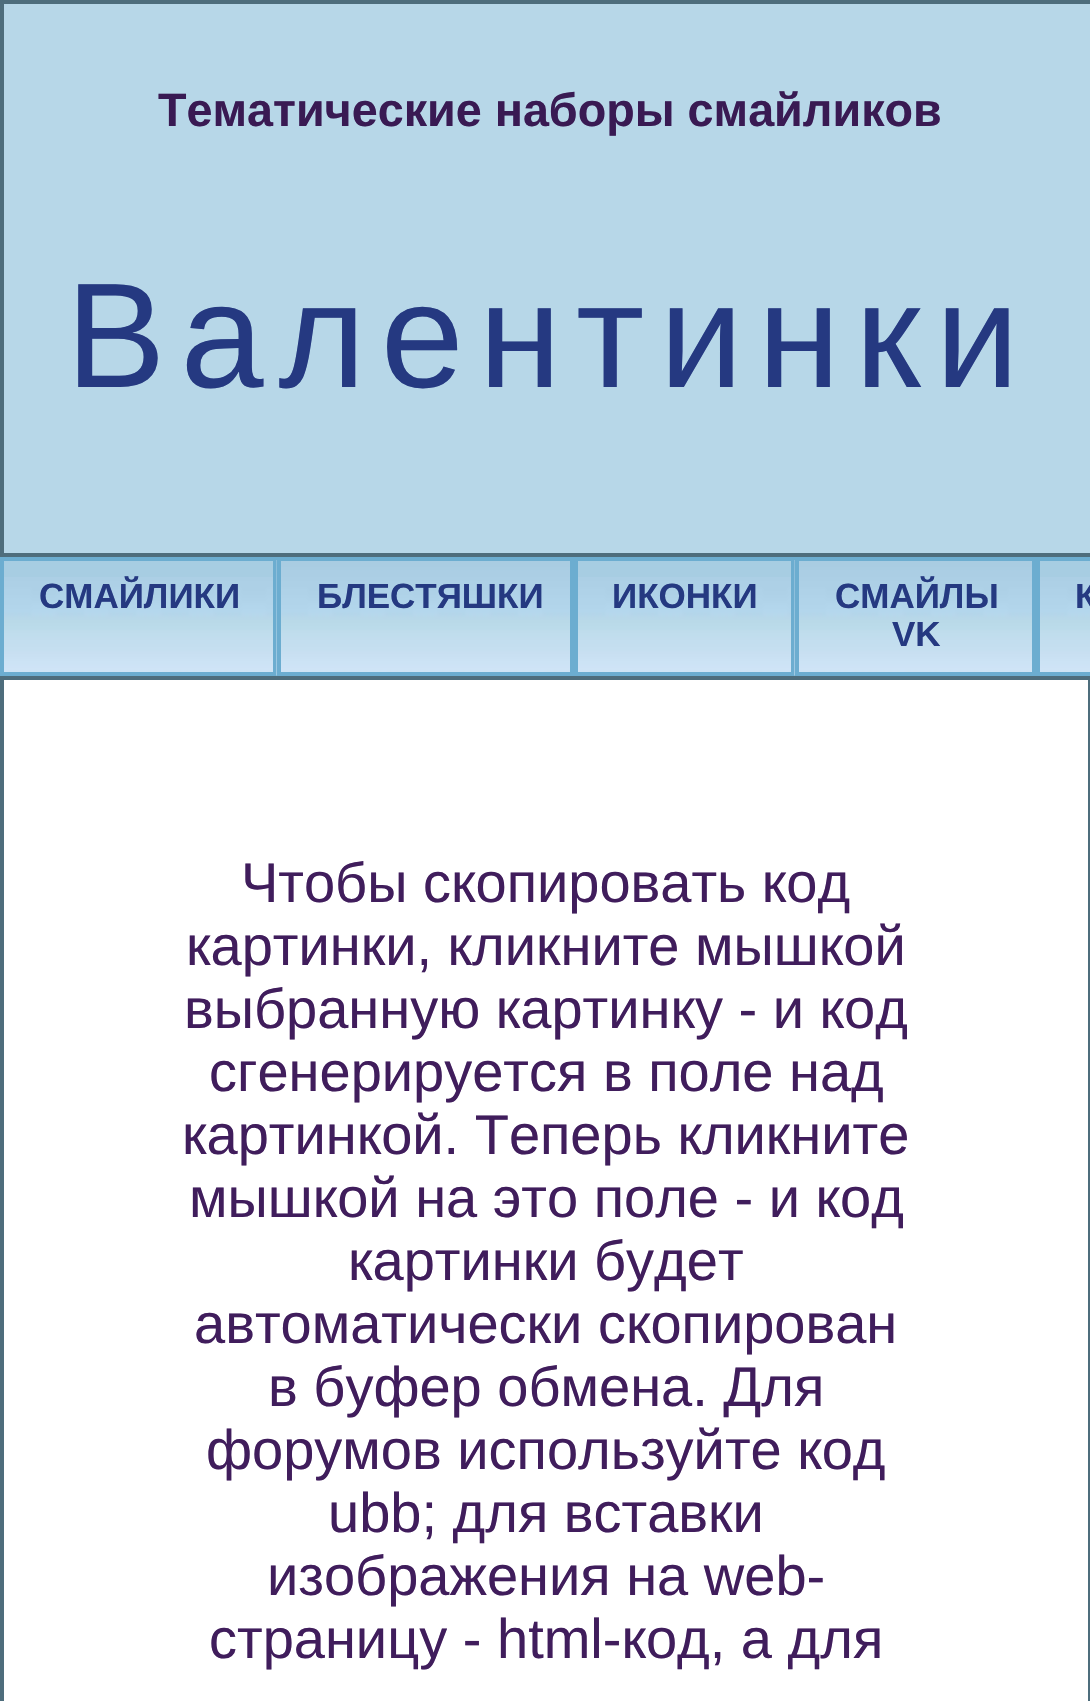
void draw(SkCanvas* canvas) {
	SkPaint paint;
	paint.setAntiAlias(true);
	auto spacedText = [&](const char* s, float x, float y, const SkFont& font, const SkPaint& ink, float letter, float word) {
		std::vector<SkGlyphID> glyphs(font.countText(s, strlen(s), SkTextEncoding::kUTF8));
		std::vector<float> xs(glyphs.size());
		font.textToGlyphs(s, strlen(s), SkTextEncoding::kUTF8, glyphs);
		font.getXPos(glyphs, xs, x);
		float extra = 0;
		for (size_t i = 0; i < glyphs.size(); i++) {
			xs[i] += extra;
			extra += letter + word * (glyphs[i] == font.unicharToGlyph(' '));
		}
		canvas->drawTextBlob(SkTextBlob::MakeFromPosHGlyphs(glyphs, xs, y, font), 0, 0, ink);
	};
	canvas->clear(0xffb7d7e8);
	paint.setStroke(true);
	paint.setStrokeWidth(4);
	paint.setColor(0xff4e6d7c);
	canvas->drawRect(SkRect::MakeXYWH(2, 2, 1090, 553), paint);
	SkFont f1(fontMgr->matchFamilyStyle("Liberation Sans", SkFontStyle::Bold()), 46.7);
	f1.setSubpixel(true);
	paint.setStroke(false);
	paint.setColor(0xff391a53);
	canvas->drawString("Тематические наборы смайликов", 158, 126, f1, paint);
	SkFont f2(fontMgr->matchFamilyStyle("Liberation Sans", SkFontStyle::Normal()), 149.25);
	f2.setSubpixel(true);
	paint.setColor(0xff253981);
	spacedText("Валентинки", 66, 387, f2, paint, 15, 0);
	paint.setColor(0xffa7cde2);
	canvas->drawRect(SkRect::MakeXYWH(4, 561, 1086, 16), paint);
	canvas->drawImageRect(SkImages::DeferredFromEncodedData(SkData::MakeFromFileName("img1.png")), SkRect::MakeXYWH(4, 577, 269, 95), SkSamplingOptions());
	paint.setStroke(true);
	paint.setColor(0xff6cadd0);
	canvas->drawRect(SkRect::MakeXYWH(2, 559, 273, 115), paint);
	SkFont f3(fontMgr->matchFamilyStyle("Liberation Sans", SkFontStyle::Bold()), 35);
	f3.setSubpixel(true);
	paint.setStroke(false);
	paint.setColor(0xff253981);
	canvas->drawString("СМАЙЛИКИ", 39, 608, f3, paint);
	canvas->drawImageRect(SkImages::DeferredFromEncodedData(SkData::MakeFromFileName("img2.png")), SkRect::MakeXYWH(276, 560, 294, 116), SkSamplingOptions());
	paint.setStroke(true);
	paint.setColor(0xff6cadd0);
	canvas->drawRect(SkRect::MakeXYWH(279, 559, 293, 115), paint);
	paint.setStroke(false);
	paint.setColor(0xff253981);
	canvas->drawString("БЛЕСТЯШКИ", 317, 608, f3, paint);
	canvas->drawImageRect(SkImages::DeferredFromEncodedData(SkData::MakeFromFileName("img3.png")), SkRect::MakeXYWH(578, 577, 213, 95), SkSamplingOptions());
	paint.setStroke(true);
	paint.setColor(0xff6cadd0);
	canvas->drawRect(SkRect::MakeXYWH(576, 559, 217, 115), paint);
	paint.setStroke(false);
	paint.setColor(0xff253981);
	canvas->drawString("ИКОНКИ", 612, 608, f3, paint);
	canvas->drawImageRect(SkImages::DeferredFromEncodedData(SkData::MakeFromFileName("img4.png")), SkRect::MakeXYWH(794, 560, 238, 116), SkSamplingOptions());
	paint.setStroke(true);
	paint.setColor(0xff6cadd0);
	canvas->drawRect(SkRect::MakeXYWH(797, 559, 237, 115), paint);
	paint.setStroke(false);
	paint.setColor(0xff253981);
	canvas->drawString("СМАЙЛЫ", 835, 608, f3, paint);
	canvas->drawString("VK", 892, 646, f3, paint);
	canvas->drawImageRect(SkImages::DeferredFromEncodedData(SkData::MakeFromFileName("img5.png")), SkRect::MakeXYWH(1040, 577, 50, 95), SkSamplingOptions());
	paint.setStroke(true);
	paint.setColor(0xff6cadd0);
	canvas->drawRect(SkRect::MakeXYWH(1038, 559, 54, 115), paint);
	paint.setStroke(false);
	paint.setColor(0xff253981);
	canvas->drawString("К", 1075, 608, f3, paint);
	paint.setColor(0xffffffff);
	canvas->drawRect(SkRect::MakeXYWH(2, 678, 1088, 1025), paint);
	paint.setStroke(true);
	paint.setColor(0xff4e6d7c);
	canvas->drawRect(SkRect::MakeXYWH(2, 678, 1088, 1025), paint);
	SkFont f4(fontMgr->matchFamilyStyle("Liberation Sans", SkFontStyle::Normal()), 56);
	f4.setSubpixel(true);
	paint.setStroke(false);
	paint.setColor(0xff401d5c);
	canvas->drawString("Чтобы скопировать код", 241, 902, f4, paint);
	canvas->drawString("картинки, кликните мышкой", 186, 965, f4, paint);
	canvas->drawString("выбранную картинку - и код", 184, 1028, f4, paint);
	canvas->drawString("сгенерируется в поле над", 209, 1091, f4, paint);
	canvas->drawString("картинкой. Теперь кликните", 182, 1154, f4, paint);
	canvas->drawString("мышкой на это поле - и код", 189, 1217, f4, paint);
	canvas->drawString("картинки будет", 348, 1280, f4, paint);
	canvas->drawString("автоматически скопирован", 194, 1343, f4, paint);
	canvas->drawString("в буфер обмена. Для", 268, 1406, f4, paint);
	canvas->drawString("форумов используйте код", 206, 1469, f4, paint);
	canvas->drawString("ubb; для вставки", 328, 1532, f4, paint);
	canvas->drawString("изображения на web-", 267, 1595, f4, paint);
	canvas->drawString("страницу - html-код, а для", 209, 1658, f4, paint);
}
